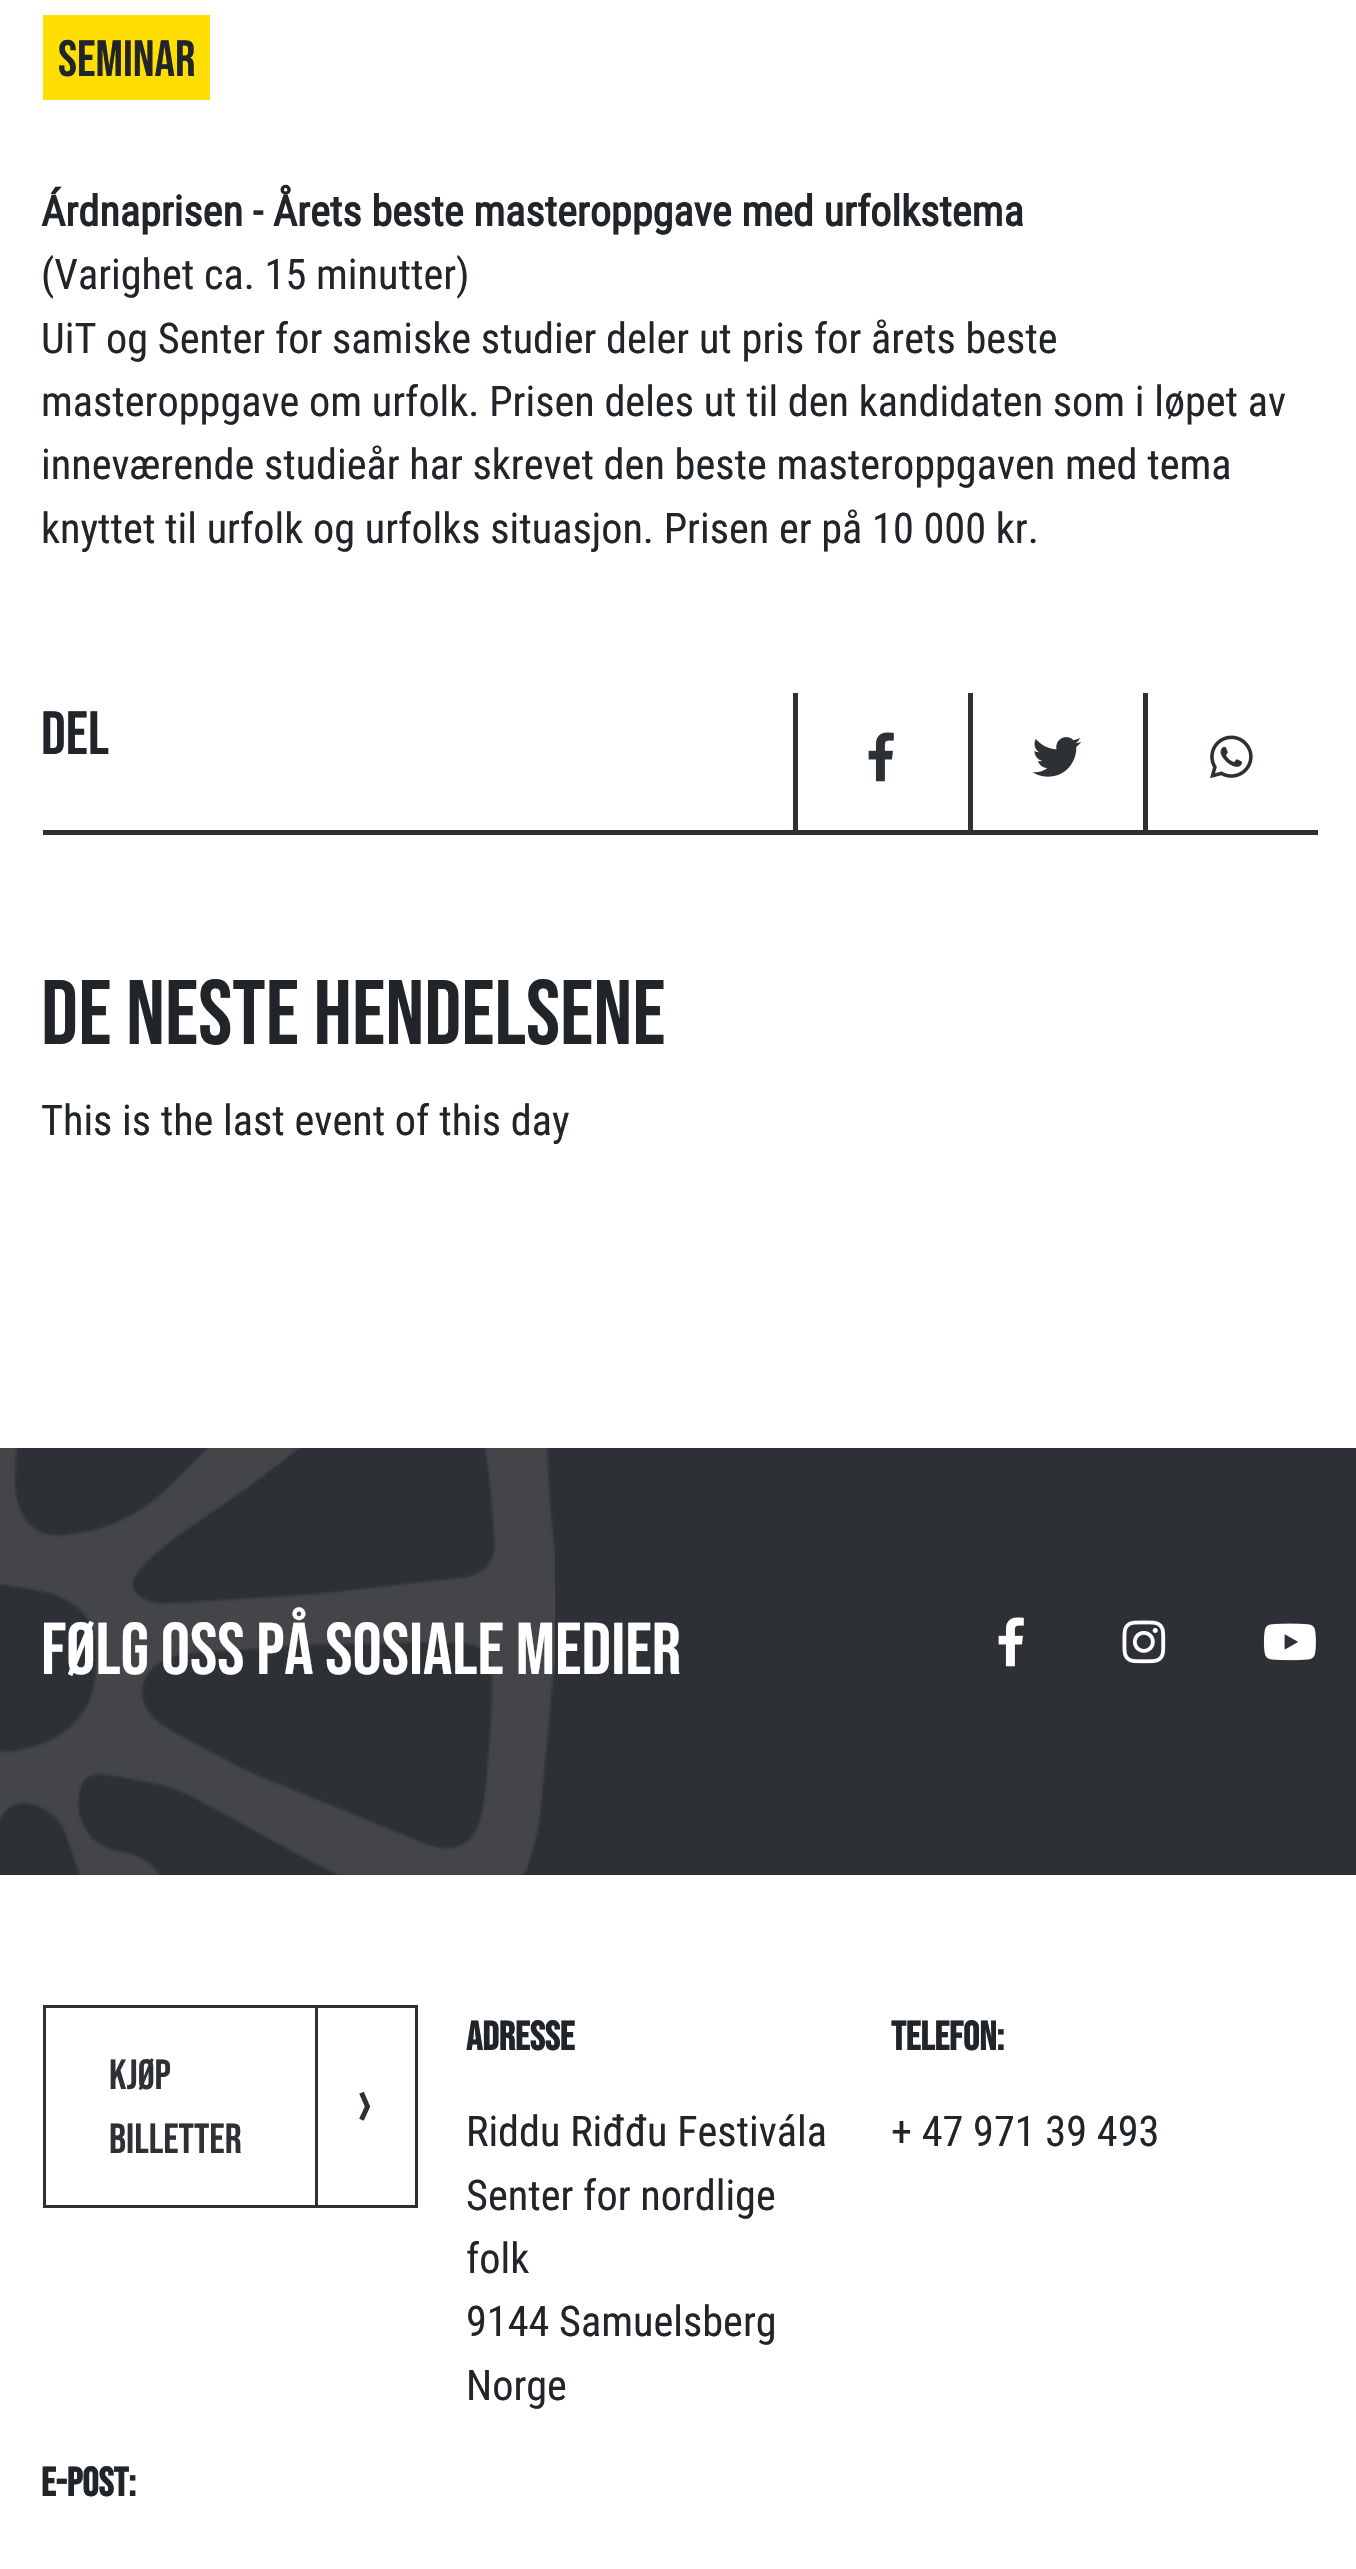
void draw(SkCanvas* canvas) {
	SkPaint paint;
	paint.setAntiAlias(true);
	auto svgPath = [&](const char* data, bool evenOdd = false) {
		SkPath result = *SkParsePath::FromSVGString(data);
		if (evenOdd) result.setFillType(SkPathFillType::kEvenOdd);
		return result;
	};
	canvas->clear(0xffffffff);
	paint.setColor(0xffffde03);
	canvas->drawRect(SkRect::MakeXYWH(43, 15, 167, 85), paint);
	SkFont f1(fontMgr->matchFamilyStyle("Bebas Neue", SkFontStyle::Normal()), 51);
	f1.setSubpixel(true);
	paint.setColor(0xff212529);
	canvas->drawString("Seminar", 58, 76, f1, paint);
	SkFont f2(fontMgr->matchFamilyStyle("Roboto Condensed", SkFontStyle::Bold()), 42.25);
	f2.setSubpixel(true);
	canvas->drawString("Árdnaprisen - Årets beste masteroppgave med urfolkstema", 41, 226, f2, paint);
	SkFont f3(fontMgr->matchFamilyStyle("Roboto Condensed", SkFontStyle::Normal()), 42.25);
	f3.setSubpixel(true);
	canvas->drawString("(Varighet ca. 15 minutter)", 41, 289, f3, paint);
	canvas->drawString("UiT og Senter for samiske studier deler ut pris for årets beste", 41, 353, f3, paint);
	canvas->drawString("masteroppgave om urfolk. Prisen deles ut til den kandidaten som i løpet av", 41, 416, f3, paint);
	canvas->drawString("inneværende studieår har skrevet den beste masteroppgaven med tema", 41, 479, f3, paint);
	canvas->drawString("knyttet til urfolk og urfolks situasjon. Prisen er på 10 000 kr.", 41, 543, f3, paint);
	paint.setColor(0xff2d3034);
	canvas->drawRect(SkRect::MakeXYWH(43, 830, 1275, 5), paint);
	SkFont f4(fontMgr->matchFamilyStyle("Bebas Neue", SkFontStyle::Normal()), 61);
	f4.setSubpixel(true);
	paint.setColor(0xff212529);
	canvas->drawString("del", 41, 754, f4, paint);
	paint.setColor(0xff2d3034);
	canvas->drawRect(SkRect::MakeXYWH(793, 693, 5, 137), paint);
	canvas->drawImageRect(SkImages::DeferredFromEncodedData(SkData::MakeFromFileName("img1.png")), SkRect::MakeXYWH(868, 732, 26, 50), SkSamplingOptions());
	canvas->drawRect(SkRect::MakeXYWH(968, 693, 5, 137), paint);
	canvas->drawImageRect(SkImages::DeferredFromEncodedData(SkData::MakeFromFileName("img2.png")), SkRect::MakeXYWH(1032, 737, 50, 40), SkSamplingOptions());
	canvas->drawRect(SkRect::MakeXYWH(1143, 693, 5, 137), paint);
	canvas->drawImageRect(SkImages::DeferredFromEncodedData(SkData::MakeFromFileName("img3.png")), SkRect::MakeXYWH(1210, 735, 43, 44), SkSamplingOptions());
	SkFont f5(fontMgr->matchFamilyStyle("Bebas Neue", SkFontStyle::Normal()), 91.5);
	f5.setSubpixel(true);
	paint.setColor(0xff212529);
	canvas->drawString("De neste hendelsene", 41, 1044, f5, paint);
	canvas->drawString("This is the last event of this day", 41, 1135, f3, paint);
	paint.setColor(0xff2d3034);
	canvas->drawRect(SkRect::MakeXYWH(0, 1448, 1356, 427), paint);
	canvas->drawImageRect(SkImages::DeferredFromEncodedData(SkData::MakeFromFileName("img4.png")), SkRect::MakeXYWH(0, 1448, 555, 427), SkSamplingOptions());
	SkFont f6(fontMgr->matchFamilyStyle("Bebas Neue", SkFontStyle::Normal()), 73.1);
	f6.setSubpixel(true);
	paint.setColor(0xffffffff);
	canvas->drawString("Følg oss på sosiale medier", 41, 1674, f6, paint);
	canvas->drawImageRect(SkImages::DeferredFromEncodedData(SkData::MakeFromFileName("img5.png")), SkRect::MakeXYWH(998, 1617, 26, 50), SkSamplingOptions());
	canvas->drawImageRect(SkImages::DeferredFromEncodedData(SkData::MakeFromFileName("img6.png")), SkRect::MakeXYWH(1122, 1620, 44, 44), SkSamplingOptions());
	canvas->drawImageRect(SkImages::DeferredFromEncodedData(SkData::MakeFromFileName("img7.png")), SkRect::MakeXYWH(1263, 1623, 53, 38), SkSamplingOptions());
	paint.setStroke(true);
	paint.setStrokeWidth(3);
	paint.setColor(0xff2d3034);
	canvas->drawRect(SkRect::MakeXYWH(44.5, 2006.5, 372, 200), paint);
	SkFont f7(fontMgr->matchFamilyStyle("Bebas Neue", SkFontStyle::Normal()), 42.25);
	f7.setSubpixel(true);
	paint.setStroke(false);
	canvas->drawString("Kjøp", 109, 2089, f7, paint);
	paint.setStroke(true);
	paint.setStrokeWidth(5);
	paint.setStrokeCap(SkPaint::kSquare_Cap);
	canvas->drawPath(svgPath("M362.5 2095L367.5 2106.5L362.5 2117.5"), paint);
	paint.setStroke(false);
	canvas->drawRect(SkRect::MakeXYWH(315, 2008, 3, 197), paint);
	canvas->drawString("billetter", 109, 2153, f7, paint);
	SkFont f8(fontMgr->matchFamilyStyle("Bebas Neue", SkFontStyle::Bold()), 40.5);
	f8.setSubpixel(true);
	paint.setColor(0xff212529);
	canvas->drawString("ADRESSE", 466, 2050, f8, paint);
	canvas->drawString("Riddu Riđđu Festivála", 466, 2146, f3, paint);
	canvas->drawString("Senter for nordlige", 466, 2210, f3, paint);
	canvas->drawString("folk", 466, 2273, f3, paint);
	canvas->drawString("9144 Samuelsberg", 466, 2336, f3, paint);
	canvas->drawString("Norge", 466, 2400, f3, paint);
	canvas->drawString("TELEFON:", 891, 2050, f8, paint);
	canvas->drawString("+ 47 971 39 493", 891, 2146, f3, paint);
	canvas->drawString("E-post:", 41, 2496, f8, paint);
}
